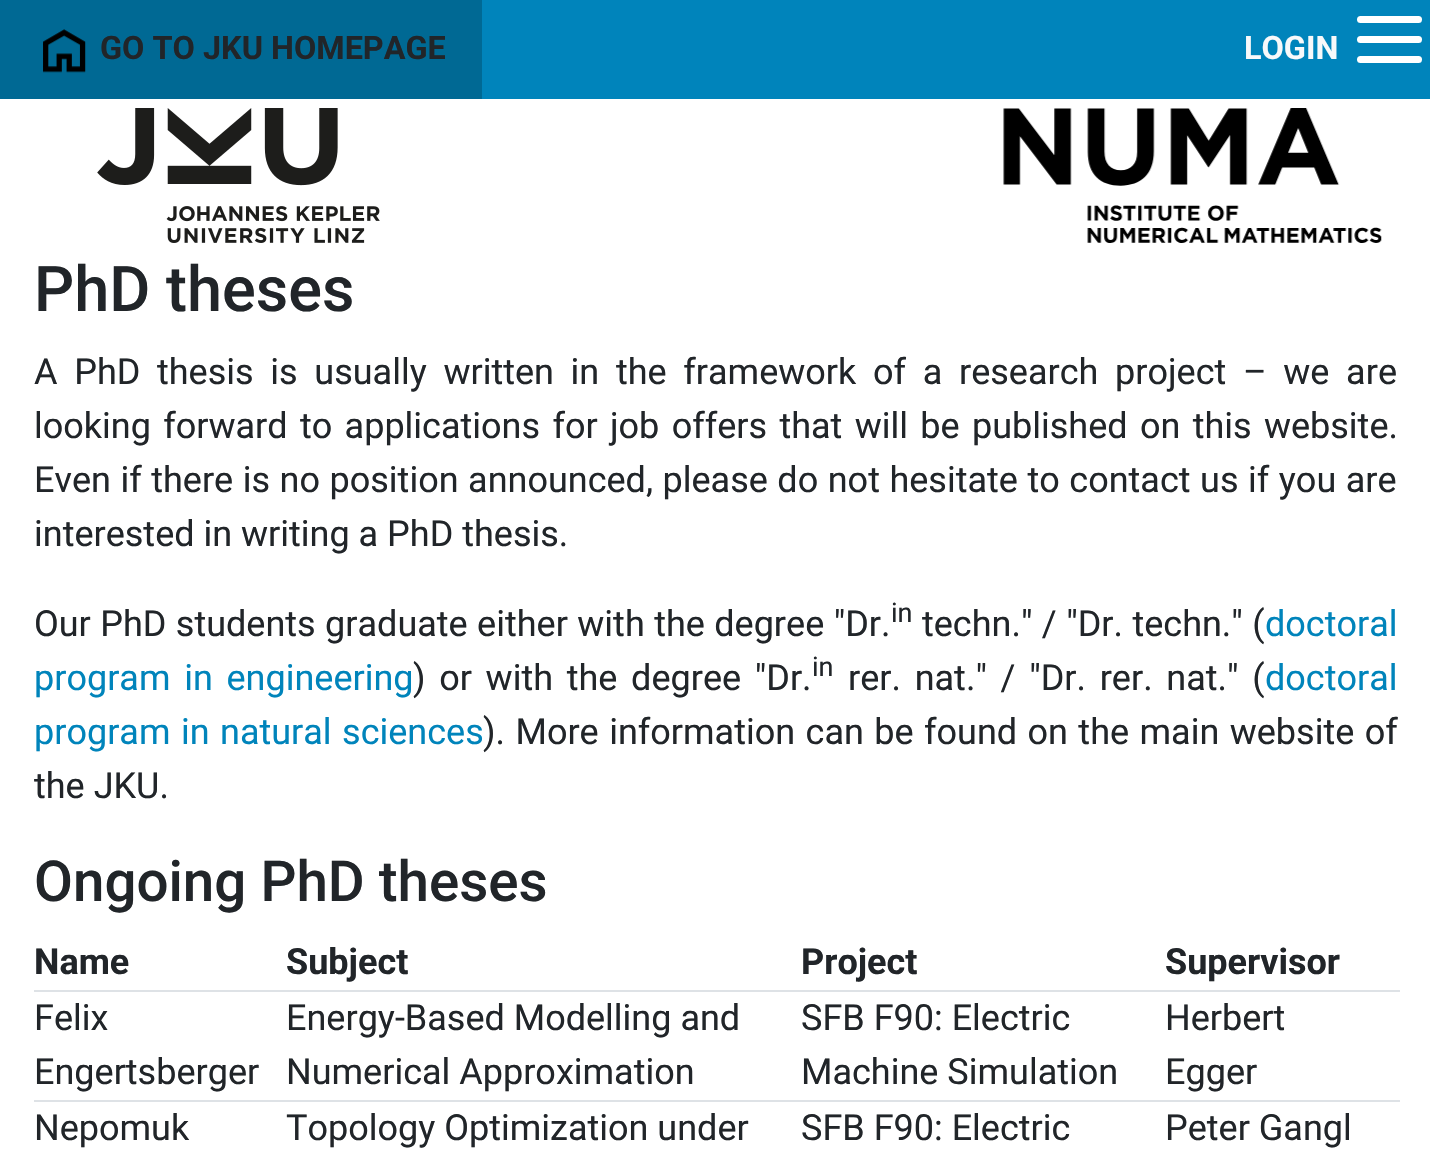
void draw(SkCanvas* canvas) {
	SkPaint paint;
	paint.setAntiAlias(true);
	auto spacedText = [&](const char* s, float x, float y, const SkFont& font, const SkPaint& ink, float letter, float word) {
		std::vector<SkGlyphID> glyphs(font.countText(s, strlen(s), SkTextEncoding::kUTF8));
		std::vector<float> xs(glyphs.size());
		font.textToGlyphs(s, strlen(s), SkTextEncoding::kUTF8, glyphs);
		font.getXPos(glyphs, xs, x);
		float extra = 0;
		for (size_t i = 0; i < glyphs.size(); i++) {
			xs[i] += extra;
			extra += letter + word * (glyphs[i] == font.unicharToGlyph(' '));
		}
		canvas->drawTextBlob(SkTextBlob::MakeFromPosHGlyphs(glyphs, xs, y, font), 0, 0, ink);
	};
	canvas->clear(0xffffffff);
	paint.setColor(0xff0084bb);
	canvas->drawRect(SkRect::MakeXYWH(482, 0, 948, 99), paint);
	paint.setColor(0xff006994);
	canvas->drawRect(SkRect::MakeXYWH(0, 0, 482, 99), paint);
	canvas->drawImageRect(SkImages::DeferredFromEncodedData(SkData::MakeFromFileName("img1.png")), SkRect::MakeXYWH(43, 29, 43, 44), SkSamplingOptions());
	SkFont f1(fontMgr->matchFamilyStyle("Roboto", SkFontStyle::Bold()), 32.4);
	f1.setSubpixel(true);
	paint.setColor(0xff212529);
	canvas->drawString("GO TO JKU HOMEPAGE", 100, 59, f1, paint);
	paint.setColor(0xfff8f9fa);
	canvas->drawString("LOGIN", 1244, 59, f1, paint);
	paint.setColor(0xffffffff);
	canvas->drawRoundRect(SkRect::MakeXYWH(1357, 16, 65, 7), 3.5, 3.5, paint);
	canvas->drawRoundRect(SkRect::MakeXYWH(1357, 36, 65, 7), 3.5, 3.5, paint);
	canvas->drawRoundRect(SkRect::MakeXYWH(1357, 56, 65, 7), 3.5, 3.5, paint);
	canvas->drawImageRect(SkImages::DeferredFromEncodedData(SkData::MakeFromFileName("img2.png")), SkRect::MakeXYWH(97, 108, 283, 135), SkSamplingOptions());
	canvas->drawImageRect(SkImages::DeferredFromEncodedData(SkData::MakeFromFileName("img3.png")), SkRect::MakeXYWH(1003, 108, 379, 135), SkSamplingOptions());
	SkFont f2(fontMgr->matchFamilyStyle("Roboto", SkFontStyle(500, SkFontStyle::kNormal_Width, SkFontStyle::kUpright_Slant)), 63);
	f2.setSubpixel(true);
	paint.setColor(0xff212529);
	canvas->drawString("PhD theses", 34, 311, f2, paint);
	SkFont f3(fontMgr->matchFamilyStyle("Roboto", SkFontStyle::Normal()), 36);
	f3.setSubpixel(true);
	spacedText("A PhD thesis is usually written in the framework of a research project – we are", 34, 384, f3, paint, 0, 7.75);
	spacedText("looking forward to applications for job offers that will be published on this website.", 34, 438, f3, paint, 0, 3.4);
	spacedText("Even if there is no position announced, please do not hesitate to contact us if you are", 34, 492, f3, paint, 0, 0.6);
	canvas->drawString("interested in writing a PhD thesis.", 34, 546, f3, paint);
	spacedText("Our PhD students graduate either with the degree \"Dr.", 34, 636, f3, paint, 0, 0.5);
	SkFont f4(fontMgr->matchFamilyStyle("Roboto", SkFontStyle::Normal()), 27);
	f4.setSubpixel(true);
	canvas->drawString("in", 891, 622, f4, paint);
	spacedText("techn.\" / \"Dr. techn.\" (", 922, 636, f3, paint, 0, 0.5);
	paint.setColor(0xff0084bb);
	canvas->drawString("doctoral", 1265, 636, f3, paint);
	spacedText("program in engineering", 34, 690, f3, paint, 0, 4.75);
	paint.setColor(0xff212529);
	spacedText(") or with the degree \"Dr.", 413, 690, f3, paint, 0, 4.75);
	canvas->drawString("in", 812, 676, f4, paint);
	spacedText("rer. nat.\" / \"Dr. rer. nat.\" (", 848, 690, f3, paint, 0, 4.75);
	paint.setColor(0xff0084bb);
	canvas->drawString("doctoral", 1265, 690, f3, paint);
	spacedText("program in natural sciences", 34, 744, f3, paint, 0, 1.5);
	paint.setColor(0xff212529);
	spacedText("). More information can be found on the main website of", 483, 744, f3, paint, 0, 1.5);
	canvas->drawString("the JKU.", 34, 798, f3, paint);
	SkFont f5(fontMgr->matchFamilyStyle("Roboto", SkFontStyle(500, SkFontStyle::kNormal_Width, SkFontStyle::kUpright_Slant)), 56.5);
	f5.setSubpixel(true);
	canvas->drawString("Ongoing PhD theses", 34, 901, f5, paint);
	SkFont f6(fontMgr->matchFamilyStyle("Roboto", SkFontStyle::Bold()), 36);
	f6.setSubpixel(true);
	canvas->drawString("Name", 34, 974, f6, paint);
	canvas->drawString("Subject", 286, 974, f6, paint);
	canvas->drawString("Project", 801, 974, f6, paint);
	paint.setColor(0xffdee2e6);
	canvas->drawRect(SkRect::MakeXYWH(34, 990, 1366, 2), paint);
	paint.setColor(0xff212529);
	canvas->drawString("Supervisor", 1165, 974, f6, paint);
	canvas->drawString("Felix", 34, 1030, f3, paint);
	canvas->drawString("Engertsberger", 34, 1084, f3, paint);
	canvas->drawString("Energy-Based Modelling and", 286, 1030, f3, paint);
	canvas->drawString("Numerical Approximation", 286, 1084, f3, paint);
	canvas->drawString("SFB F90: Electric", 801, 1030, f3, paint);
	canvas->drawString("Machine Simulation", 801, 1084, f3, paint);
	paint.setColor(0xffdee2e6);
	canvas->drawRect(SkRect::MakeXYWH(34, 1100, 1366, 2), paint);
	paint.setColor(0xff212529);
	canvas->drawString("Herbert", 1165, 1030, f3, paint);
	canvas->drawString("Egger", 1165, 1084, f3, paint);
	canvas->drawString("Nepomuk", 34, 1140, f3, paint);
	canvas->drawString("Topology Optimization under", 286, 1140, f3, paint);
	canvas->drawString("SFB F90: Electric", 801, 1140, f3, paint);
	canvas->drawString("Peter Gangl", 1165, 1140, f3, paint);
}
